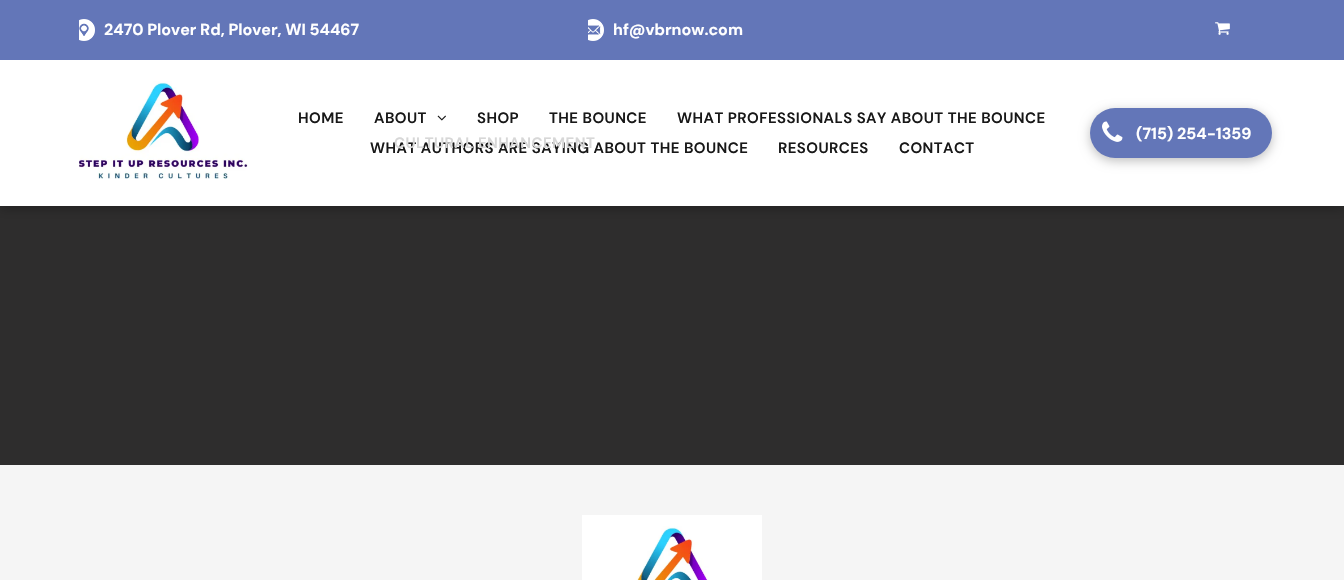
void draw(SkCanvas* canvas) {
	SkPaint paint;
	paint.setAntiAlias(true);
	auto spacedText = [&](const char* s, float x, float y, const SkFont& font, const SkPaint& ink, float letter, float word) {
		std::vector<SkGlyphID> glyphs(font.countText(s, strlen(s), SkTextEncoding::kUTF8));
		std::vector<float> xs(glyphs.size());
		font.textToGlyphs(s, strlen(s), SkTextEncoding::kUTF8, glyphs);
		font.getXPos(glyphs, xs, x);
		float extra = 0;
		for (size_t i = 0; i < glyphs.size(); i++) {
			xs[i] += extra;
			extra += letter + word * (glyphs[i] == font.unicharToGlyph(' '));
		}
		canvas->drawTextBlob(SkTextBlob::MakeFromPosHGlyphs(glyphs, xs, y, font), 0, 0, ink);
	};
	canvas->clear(0xff2e2d2d);
	paint.setColor(0x40000000);
	paint.setMaskFilter(SkMaskFilter::MakeBlur(kNormal_SkBlurStyle, 5.5));
	canvas->drawRect(SkRect::MakeXYWH(0, 3, 1344, 206), paint);
	paint.setMaskFilter(nullptr);
	paint.setColor(0xffffffff);
	canvas->drawRect(SkRect::MakeXYWH(0, 60, 1344, 146), paint);
	paint.setColor(0xff6376b8);
	canvas->drawRect(SkRect::MakeXYWH(0, 0, 1344, 60), paint);
	canvas->drawImageRect(SkImages::DeferredFromEncodedData(SkData::MakeFromFileName("img1.png")), SkRect::MakeXYWH(79, 19, 16, 22), SkSamplingOptions());
	SkFont f1(fontMgr->matchFamilyStyle("DM Sans", SkFontStyle::Bold()), 16);
	f1.setSubpixel(true);
	paint.setColor(0xffffffff);
	canvas->drawString("2470 Plover Rd, Plover, WI 54467", 104, 35, f1, paint);
	canvas->drawImageRect(SkImages::DeferredFromEncodedData(SkData::MakeFromFileName("img2.png")), SkRect::MakeXYWH(588, 19, 16, 22), SkSamplingOptions());
	canvas->drawString("hf@vbrnow.com", 613, 35, f1, paint);
	canvas->drawImageRect(SkImages::DeferredFromEncodedData(SkData::MakeFromFileName("img3.png")), SkRect::MakeXYWH(1215, 22, 15, 13), SkSamplingOptions());
	canvas->drawImageRect(SkImages::DeferredFromEncodedData(SkData::MakeFromFileName("img4.png")), SkRect::MakeXYWH(79, 81, 169, 98), SkSamplingOptions());
	SkFont f2(fontMgr->matchFamilyStyle("DM Sans", SkFontStyle(600, SkFontStyle::kNormal_Width, SkFontStyle::kUpright_Slant)), 15);
	f2.setSubpixel(true);
	paint.setColor(0xff181818);
	spacedText("HOME", 298, 123, f2, paint, 0.45, 0);
	spacedText("ABOUT", 374, 123, f2, paint, 0.45, 0);
	canvas->drawImageRect(SkImages::DeferredFromEncodedData(SkData::MakeFromFileName("img5.png")), SkRect::MakeXYWH(437, 115, 9, 6), SkSamplingOptions());
	spacedText("WHAT AUTHORS ARE SAYING ABOUT THE BOUNCE", 370, 153, f2, paint, 0.45, 0);
	paint.setColor(0xffd7d7d7);
	spacedText("CULTURAL ENHANCEMENT", 394, 148, f2, paint, 0.45, 0);
	paint.setColor(0xff181818);
	spacedText("SHOP", 477, 123, f2, paint, 0.45, 0);
	spacedText("THE BOUNCE", 549, 123, f2, paint, 0.45, 0);
	spacedText("WHAT PROFESSIONALS SAY ABOUT THE BOUNCE", 677, 123, f2, paint, 0.45, 0);
	spacedText("RESOURCES", 778, 153, f2, paint, 0.45, 0);
	spacedText("CONTACT", 899, 153, f2, paint, 0.45, 0);
	paint.setColor(0x40000000);
	paint.setMaskFilter(SkMaskFilter::MakeBlur(kNormal_SkBlurStyle, 5.5));
	canvas->drawRoundRect(SkRect::MakeXYWH(1090, 111, 182, 50), 25, 25, paint);
	paint.setMaskFilter(nullptr);
	paint.setColor(0xff6376b8);
	canvas->drawRoundRect(SkRect::MakeXYWH(1090, 108, 182, 50), 25, 25, paint);
	canvas->drawImageRect(SkImages::DeferredFromEncodedData(SkData::MakeFromFileName("img6.png")), SkRect::MakeXYWH(1102, 121, 21, 21), SkSamplingOptions());
	paint.setColor(0xffffffff);
	canvas->drawString("(715) 254-1359", 1136, 139, f1, paint);
	paint.setColor(0xfff5f5f5);
	canvas->drawRect(SkRect::MakeXYWH(0, 465, 1344, 115), paint);
	canvas->drawImageRect(SkImages::DeferredFromEncodedData(SkData::MakeFromFileName("img7.png")), SkRect::MakeXYWH(582, 515, 180, 65), SkSamplingOptions());
}
